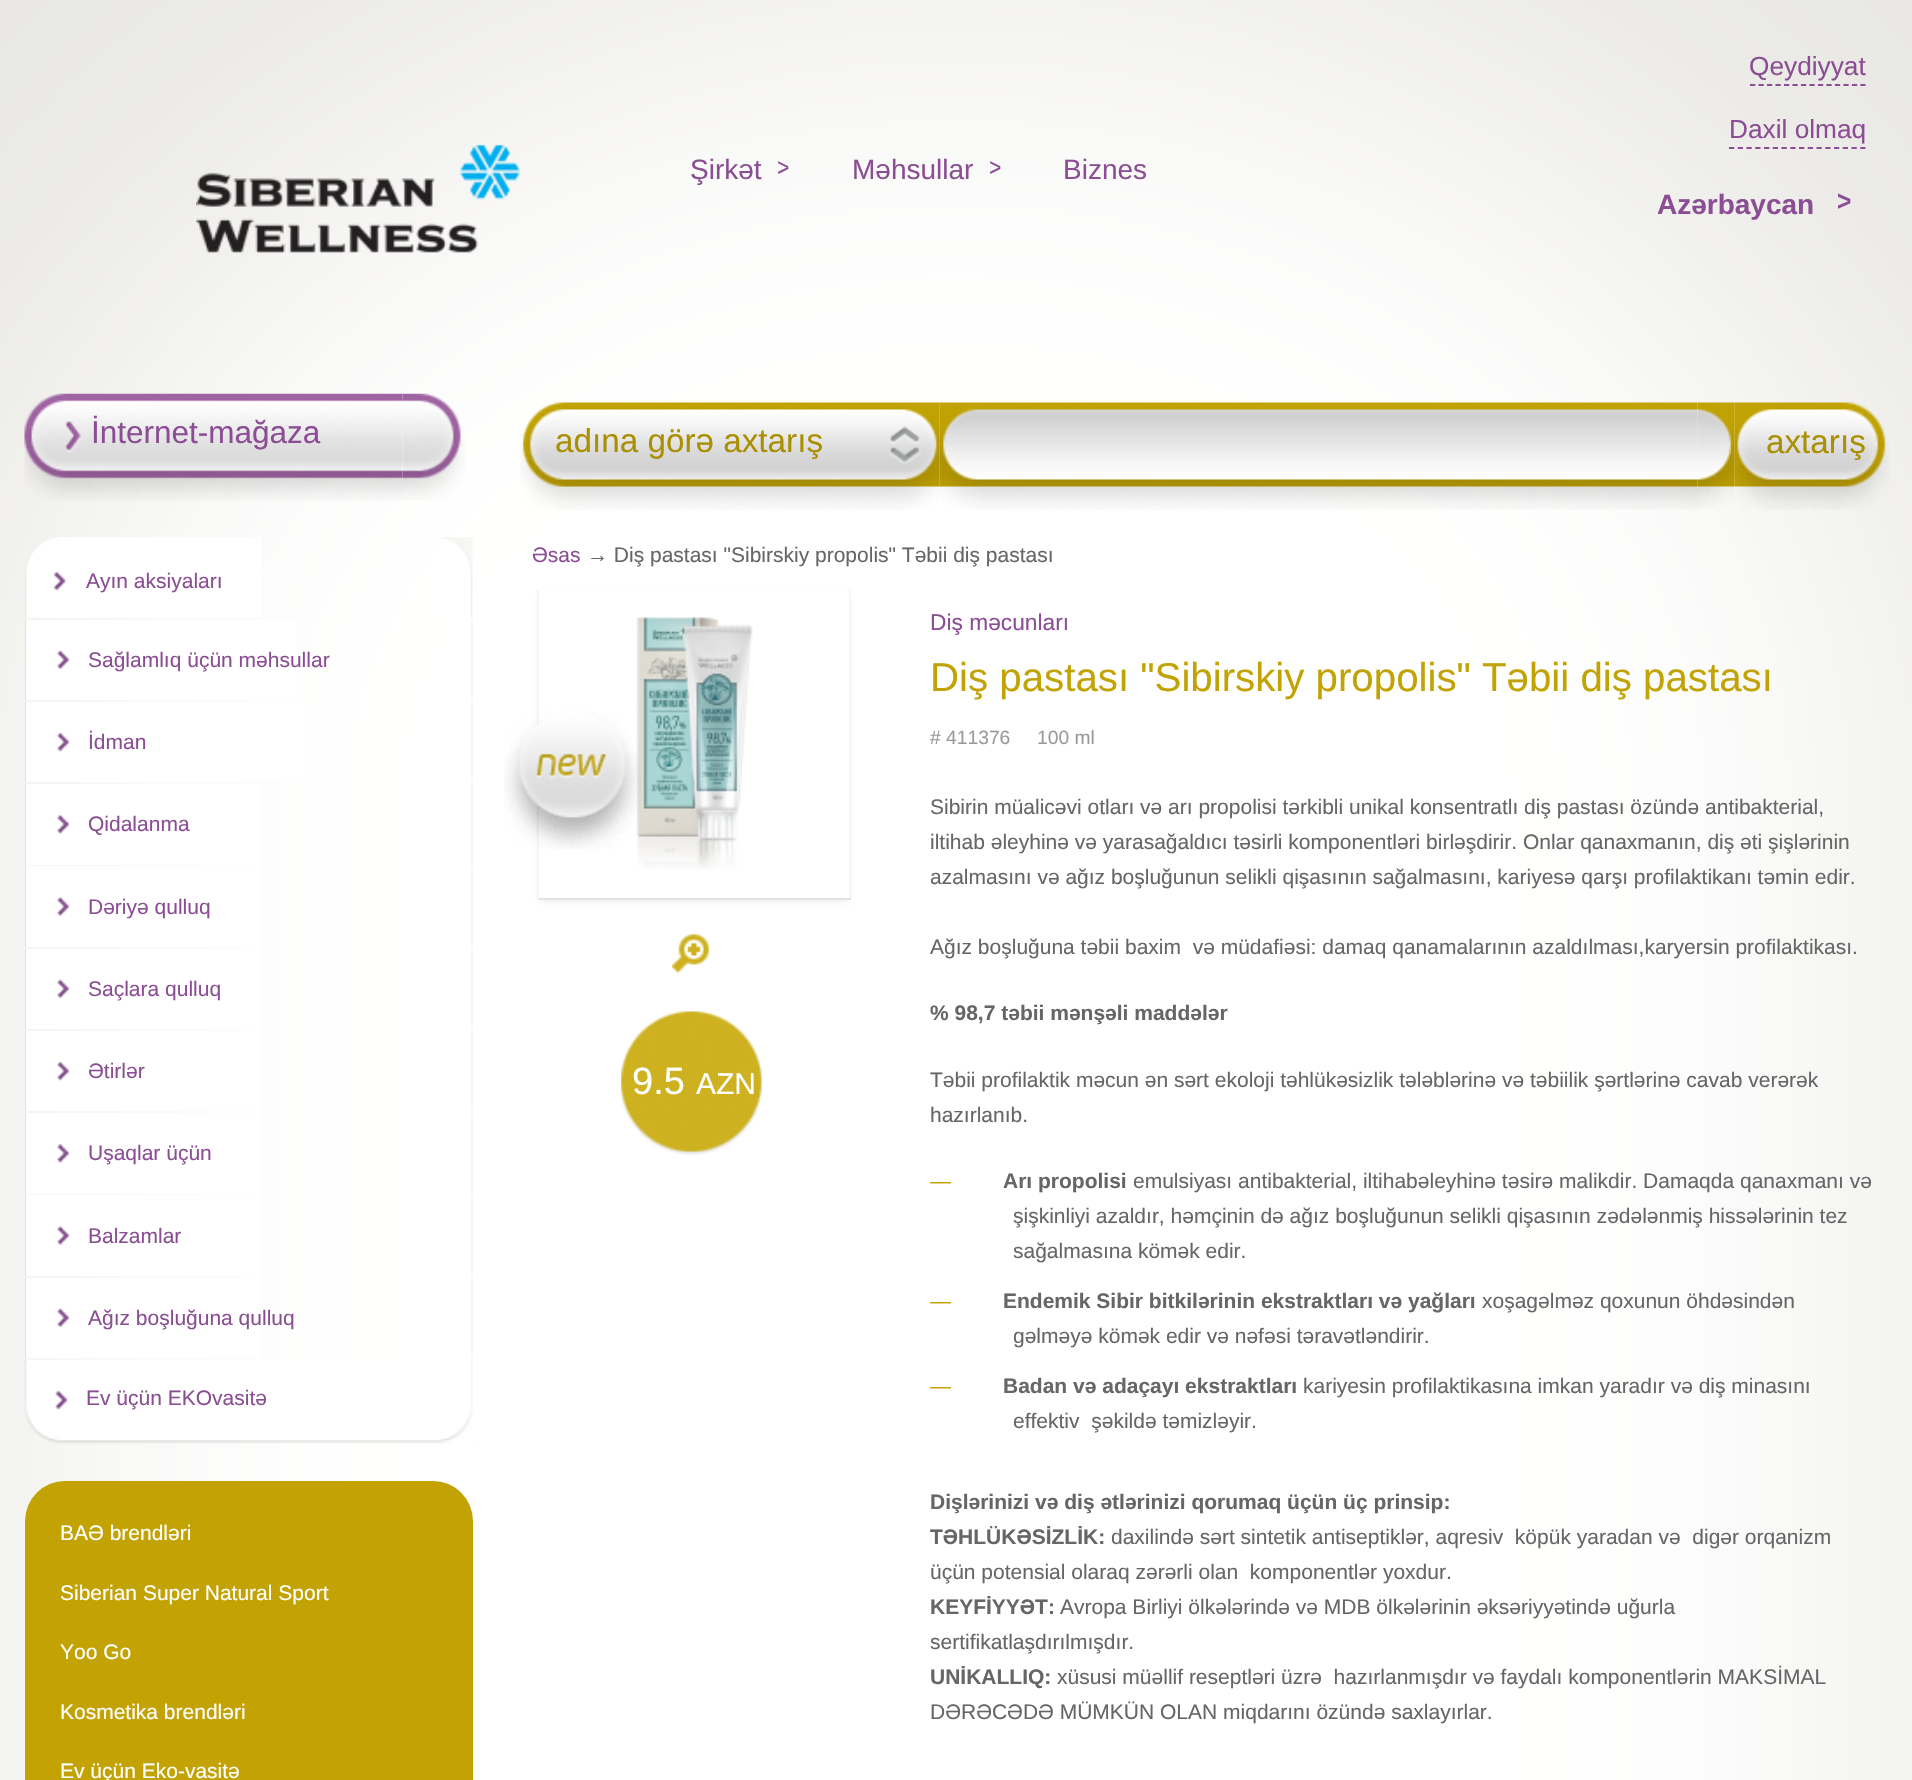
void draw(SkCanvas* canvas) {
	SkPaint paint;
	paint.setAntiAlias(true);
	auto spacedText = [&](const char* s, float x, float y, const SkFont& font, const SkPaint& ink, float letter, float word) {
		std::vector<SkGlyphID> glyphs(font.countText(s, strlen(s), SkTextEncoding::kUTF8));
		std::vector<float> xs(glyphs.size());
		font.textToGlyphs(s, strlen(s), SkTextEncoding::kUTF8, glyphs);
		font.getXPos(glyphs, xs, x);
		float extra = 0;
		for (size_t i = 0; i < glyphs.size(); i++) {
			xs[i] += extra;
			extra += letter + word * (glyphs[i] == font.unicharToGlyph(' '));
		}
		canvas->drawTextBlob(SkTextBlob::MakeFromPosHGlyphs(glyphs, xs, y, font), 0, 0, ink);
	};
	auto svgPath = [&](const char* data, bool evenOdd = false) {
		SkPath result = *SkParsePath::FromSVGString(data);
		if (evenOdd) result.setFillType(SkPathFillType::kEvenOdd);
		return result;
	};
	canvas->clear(0xffffffff);
	canvas->drawImageRect(SkImages::DeferredFromEncodedData(SkData::MakeFromFileName("img1.png")), SkRect::MakeXYWH(0, 778, 1912, 1002), SkSamplingOptions());
	canvas->drawImageRect(SkImages::DeferredFromEncodedData(SkData::MakeFromFileName("img2.png")), SkRect::MakeXYWH(0, 0, 1912, 779), SkSamplingOptions());
	canvas->drawImageRect(SkImages::DeferredFromEncodedData(SkData::MakeFromFileName("img3.png")), SkRect::MakeXYWH(196, 144, 324, 109), SkSamplingOptions());
	SkFont f1(fontMgr->matchFamilyStyle("Liberation Sans", SkFontStyle::Normal()), 28);
	f1.setSubpixel(true);
	paint.setColor(0xff8b4e94);
	canvas->drawString("Şirkət", 690, 179, f1, paint);
	canvas->save();
	canvas->rotate(90, 769, 161);
	spacedText("^", 769, 161, f1, paint, 4, 0);
	canvas->restore();
	canvas->drawString("Məhsullar", 852, 179, f1, paint);
	canvas->save();
	canvas->rotate(90, 981, 161);
	spacedText("^", 981, 161, f1, paint, 4, 0);
	canvas->restore();
	canvas->drawString("Biznes", 1063, 179, f1, paint);
	paint.setStroke(true);
	paint.setStrokeWidth(1.8);
	paint.setPathEffect(SkDashPathEffect::Make({{5.25f, 3.24f}}, 0));
	canvas->drawPath(svgPath("M1750 85H1865.5"), paint);
	paint.setPathEffect(nullptr);
	SkFont f2(fontMgr->matchFamilyStyle("Liberation Sans", SkFontStyle::Normal()), 26.25);
	f2.setSubpixel(true);
	paint.setStroke(false);
	canvas->drawString("Qeydiyyat", 1749, 75, f2, paint);
	paint.setStroke(true);
	paint.setPathEffect(SkDashPathEffect::Make({{5.25f, 3.5f}}, 0));
	canvas->drawPath(svgPath("M1729 148H1865.5"), paint);
	paint.setPathEffect(nullptr);
	paint.setStroke(false);
	canvas->drawString("Daxil olmaq", 1729, 138, f2, paint);
	SkFont f3(fontMgr->matchFamilyStyle("Liberation Sans", SkFontStyle::Bold()), 28);
	f3.setSubpixel(true);
	canvas->drawString("Azərbaycan", 1657, 214, f3, paint);
	canvas->save();
	canvas->rotate(90, 1831, 193);
	spacedText("^", 1831, 193, f3, paint, 5, 0);
	canvas->restore();
	canvas->drawImageRect(SkImages::DeferredFromEncodedData(SkData::MakeFromFileName("img4.png")), SkRect::MakeXYWH(402, 393, 63, 107), SkSamplingOptions());
	canvas->drawImageRect(SkImages::DeferredFromEncodedData(SkData::MakeFromFileName("img5.png")), SkRect::MakeXYWH(24, 393, 379, 108), SkSamplingOptions());
	SkFont f4(fontMgr->matchFamilyStyle("Liberation Sans", SkFontStyle::Normal()), 31.5);
	f4.setSubpixel(true);
	canvas->drawString("İnternet-mağaza", 91, 443, f4, paint);
	canvas->drawImageRect(SkImages::DeferredFromEncodedData(SkData::MakeFromFileName("img6.png")), SkRect::MakeXYWH(25, 537, 236, 81), SkSamplingOptions());
	canvas->drawImageRect(SkImages::DeferredFromEncodedData(SkData::MakeFromFileName("img7.png")), SkRect::MakeXYWH(442, 537, 31, 81), SkSamplingOptions());
	SkFont f5(fontMgr->matchFamilyStyle("Liberation Sans", SkFontStyle::Normal()), 21);
	f5.setSubpixel(true);
	canvas->drawString("Ayın aksiyaları", 86, 588, f5, paint);
	paint.setColor(0xfff5f5f5);
	canvas->drawRect(SkRect::MakeXYWH(471, 620, 2, 80), paint);
	paint.setColor(0xffe0e0dd);
	canvas->drawRect(SkRect::MakeXYWH(25, 620, 1, 80), paint);
	paint.setColor(0xffffffff);
	canvas->drawRect(SkRect::MakeXYWH(26, 620, 270, 80), paint);
	canvas->drawImageRect(SkImages::DeferredFromEncodedData(SkData::MakeFromFileName("img8.png")), SkRect::MakeXYWH(57, 650, 14, 19), SkSamplingOptions());
	paint.setColor(0xff8b4e94);
	canvas->drawString("Sağlamlıq üçün məhsullar", 88, 667, f5, paint);
	paint.setColor(0xfff5f5f5);
	canvas->drawRect(SkRect::MakeXYWH(471, 702, 2, 80), paint);
	paint.setColor(0xffe0e0dd);
	canvas->drawRect(SkRect::MakeXYWH(25, 702, 1, 80), paint);
	paint.setColor(0xffffffff);
	canvas->drawRect(SkRect::MakeXYWH(26, 702, 284, 80), paint);
	canvas->drawImageRect(SkImages::DeferredFromEncodedData(SkData::MakeFromFileName("img9.png")), SkRect::MakeXYWH(57, 732, 14, 20), SkSamplingOptions());
	paint.setColor(0xff8b4e94);
	canvas->drawString("İdman", 88, 749, f5, paint);
	paint.setColor(0xfff5f5f5);
	canvas->drawRect(SkRect::MakeXYWH(471, 784, 2, 81), paint);
	paint.setColor(0xffe0e0dd);
	canvas->drawRect(SkRect::MakeXYWH(25, 784, 1, 81), paint);
	paint.setColor(0xffffffff);
	canvas->drawRect(SkRect::MakeXYWH(26, 784, 233, 81), paint);
	canvas->drawImageRect(SkImages::DeferredFromEncodedData(SkData::MakeFromFileName("img10.png")), SkRect::MakeXYWH(57, 815, 14, 19), SkSamplingOptions());
	paint.setColor(0xff8b4e94);
	canvas->drawString("Qidalanma", 88, 831, f5, paint);
	paint.setColor(0xfff5f5f5);
	canvas->drawRect(SkRect::MakeXYWH(471, 866, 2, 81), paint);
	paint.setColor(0xffe0e0dd);
	canvas->drawRect(SkRect::MakeXYWH(25, 866, 1, 81), paint);
	paint.setColor(0xffffffff);
	canvas->drawRect(SkRect::MakeXYWH(26, 866, 233, 81), paint);
	canvas->drawImageRect(SkImages::DeferredFromEncodedData(SkData::MakeFromFileName("img11.png")), SkRect::MakeXYWH(57, 897, 14, 19), SkSamplingOptions());
	paint.setColor(0xff8b4e94);
	canvas->drawString("Dəriyə qulluq", 88, 914, f5, paint);
	paint.setColor(0xfff5f5f5);
	canvas->drawRect(SkRect::MakeXYWH(471, 949, 2, 80), paint);
	paint.setColor(0xffe0e0dd);
	canvas->drawRect(SkRect::MakeXYWH(25, 949, 1, 80), paint);
	paint.setColor(0xffffffff);
	canvas->drawRect(SkRect::MakeXYWH(26, 949, 233, 80), paint);
	canvas->drawImageRect(SkImages::DeferredFromEncodedData(SkData::MakeFromFileName("img8.png")), SkRect::MakeXYWH(57, 979, 14, 19), SkSamplingOptions());
	paint.setColor(0xff8b4e94);
	canvas->drawString("Saçlara qulluq", 88, 996, f5, paint);
	paint.setColor(0xfff5f5f5);
	canvas->drawRect(SkRect::MakeXYWH(471, 1031, 2, 80), paint);
	paint.setColor(0xffe0e0dd);
	canvas->drawRect(SkRect::MakeXYWH(25, 1031, 1, 80), paint);
	paint.setColor(0xffffffff);
	canvas->drawRect(SkRect::MakeXYWH(26, 1031, 233, 80), paint);
	canvas->drawImageRect(SkImages::DeferredFromEncodedData(SkData::MakeFromFileName("img9.png")), SkRect::MakeXYWH(57, 1061, 14, 20), SkSamplingOptions());
	paint.setColor(0xff8b4e94);
	canvas->drawString("Ətirlər", 88, 1078, f5, paint);
	paint.setColor(0xfff5f5f5);
	canvas->drawRect(SkRect::MakeXYWH(471, 1113, 2, 81), paint);
	paint.setColor(0xffe0e0dd);
	canvas->drawRect(SkRect::MakeXYWH(25, 1113, 1, 81), paint);
	paint.setColor(0xffffffff);
	canvas->drawRect(SkRect::MakeXYWH(26, 1113, 233, 81), paint);
	canvas->drawImageRect(SkImages::DeferredFromEncodedData(SkData::MakeFromFileName("img10.png")), SkRect::MakeXYWH(57, 1144, 14, 19), SkSamplingOptions());
	paint.setColor(0xff8b4e94);
	canvas->drawString("Uşaqlar üçün", 88, 1160, f5, paint);
	paint.setColor(0xfff5f5f5);
	canvas->drawRect(SkRect::MakeXYWH(471, 1195, 2, 81), paint);
	paint.setColor(0xffe0e0dd);
	canvas->drawRect(SkRect::MakeXYWH(25, 1195, 1, 81), paint);
	paint.setColor(0xffffffff);
	canvas->drawRect(SkRect::MakeXYWH(26, 1195, 233, 81), paint);
	canvas->drawImageRect(SkImages::DeferredFromEncodedData(SkData::MakeFromFileName("img11.png")), SkRect::MakeXYWH(57, 1226, 14, 19), SkSamplingOptions());
	paint.setColor(0xff8b4e94);
	canvas->drawString("Balzamlar", 88, 1243, f5, paint);
	paint.setColor(0xfff5f5f5);
	canvas->drawRect(SkRect::MakeXYWH(471, 1278, 2, 80), paint);
	paint.setColor(0xffe0e0dd);
	canvas->drawRect(SkRect::MakeXYWH(25, 1278, 1, 80), paint);
	paint.setColor(0xffffffff);
	canvas->drawRect(SkRect::MakeXYWH(26, 1278, 233, 80), paint);
	canvas->drawImageRect(SkImages::DeferredFromEncodedData(SkData::MakeFromFileName("img8.png")), SkRect::MakeXYWH(57, 1308, 14, 19), SkSamplingOptions());
	paint.setColor(0xff8b4e94);
	canvas->drawString("Ağız boşluğuna qulluq", 88, 1325, f5, paint);
	canvas->drawImageRect(SkImages::DeferredFromEncodedData(SkData::MakeFromFileName("img12.png")), SkRect::MakeXYWH(24, 1359, 449, 85), SkSamplingOptions());
	canvas->drawImageRect(SkImages::DeferredFromEncodedData(SkData::MakeFromFileName("img13.png")), SkRect::MakeXYWH(440, 1360, 33, 84), SkSamplingOptions());
	canvas->drawString("Ev üçün EKOvasitə", 86, 1405, f5, paint);
	paint.setColor(0xffc2a303);
	canvas->drawRoundRect(SkRect::MakeXYWH(25, 1481, 448, 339), 40, 40, paint);
	paint.setColor(0xffffffff);
	canvas->drawString("BAƏ brendləri", 60, 1540, f5, paint);
	canvas->drawString("Siberian Super Natural Sport", 60, 1600, f5, paint);
	canvas->drawString("Yoo Go", 60, 1659, f5, paint);
	canvas->drawString("Kosmetika brendləri", 60, 1719, f5, paint);
	canvas->drawString("Ev üçün Eko-vasitə", 60, 1778, f5, paint);
	canvas->drawImageRect(SkImages::DeferredFromEncodedData(SkData::MakeFromFileName("img14.png")), SkRect::MakeXYWH(520, 402, 420, 108), SkSamplingOptions());
	SkFont f6(fontMgr->matchFamilyStyle("Liberation Sans", SkFontStyle::Normal()), 33.25);
	f6.setSubpixel(true);
	paint.setColor(0xffaa8f03);
	canvas->drawString("adına görə axtarış", 555, 452, f6, paint);
	canvas->drawImageRect(SkImages::DeferredFromEncodedData(SkData::MakeFromFileName("img15.png")), SkRect::MakeXYWH(939, 402, 759, 108), SkSamplingOptions());
	canvas->drawImageRect(SkImages::DeferredFromEncodedData(SkData::MakeFromFileName("img16.png")), SkRect::MakeXYWH(1697, 402, 38, 106), SkSamplingOptions());
	canvas->drawImageRect(SkImages::DeferredFromEncodedData(SkData::MakeFromFileName("img17.png")), SkRect::MakeXYWH(1734, 402, 155, 108), SkSamplingOptions());
	canvas->drawString("axtarış", 1766, 453, f6, paint);
	paint.setColor(0xff8b4e94);
	canvas->drawString("Əsas", 532, 562, f5, paint);
	paint.setColor(0xff666666);
	canvas->drawString("→ Diş pastası \"Sibirskiy propolis\" Təbii diş pastası", 587, 562, f5, paint);
	canvas->save();
	canvas->clipPath(svgPath("M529 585H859V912H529ZM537 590H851V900H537Z", true), true);
	paint.setColor(0xffe3e3e3);
	paint.setMaskFilter(SkMaskFilter::MakeBlur(kNormal_SkBlurStyle, 3.5));
	canvas->drawRect(SkRect::MakeXYWH(541, 597, 306, 303), paint);
	paint.setMaskFilter(nullptr);
	canvas->restore();
	paint.setColor(0xfff5f5f5);
	canvas->drawRect(SkRect::MakeXYWH(849, 590, 2, 310), paint);
	paint.setColor(0xffe3e3e3);
	canvas->drawRect(SkRect::MakeXYWH(537, 898, 314, 2), paint);
	paint.setColor(0xfff5f5f5);
	canvas->drawRect(SkRect::MakeXYWH(537, 590, 2, 310), paint);
	canvas->drawImageRect(SkImages::DeferredFromEncodedData(SkData::MakeFromFileName("img18.png")), SkRect::MakeXYWH(636, 616, 117, 254), SkSamplingOptions());
	canvas->drawImageRect(SkImages::DeferredFromEncodedData(SkData::MakeFromFileName("img19.png")), SkRect::MakeXYWH(504, 711, 137, 138), SkSamplingOptions());
	canvas->drawImageRect(SkImages::DeferredFromEncodedData(SkData::MakeFromFileName("img20.png")), SkRect::MakeXYWH(672, 934, 38, 40), SkSamplingOptions());
	canvas->drawImageRect(SkImages::DeferredFromEncodedData(SkData::MakeFromFileName("img21.png")), SkRect::MakeXYWH(621, 1011, 142, 144), SkSamplingOptions());
	SkFont f7(fontMgr->matchFamilyStyle("Liberation Sans", SkFontStyle::Normal()), 38);
	f7.setSubpixel(true);
	paint.setColor(0xffffffff);
	canvas->drawString("9.5", 632, 1094, f7, paint);
	SkFont f8(fontMgr->matchFamilyStyle("Liberation Sans", SkFontStyle::Normal()), 30);
	f8.setSubpixel(true);
	canvas->drawString("AZN", 696, 1094, f8, paint);
	SkFont f9(fontMgr->matchFamilyStyle("Liberation Sans", SkFontStyle::Normal()), 22.75);
	f9.setSubpixel(true);
	paint.setColor(0xff8b4e94);
	canvas->drawString("Diş məcunları", 930, 630, f9, paint);
	SkFont f10(fontMgr->matchFamilyStyle("Liberation Sans", SkFontStyle::Normal()), 40.25);
	f10.setSubpixel(true);
	paint.setColor(0xffc2a303);
	canvas->drawString("Diş pastası \"Sibirskiy propolis\" Təbii diş pastası", 930, 691, f10, paint);
	SkFont f11(fontMgr->matchFamilyStyle("Liberation Sans", SkFontStyle::Normal()), 19.25);
	f11.setSubpixel(true);
	paint.setColor(0xff9a9a9a);
	canvas->drawString("# 411376", 930, 744, f11, paint);
	canvas->drawString("100 ml", 1037, 744, f11, paint);
	paint.setColor(0xff666666);
	canvas->drawString("Sibirin müalicəvi otları və arı propolisi tərkibli unikal konsentratlı diş pastası özündə antibakterial,", 930, 814, f5, paint);
	canvas->drawString("iltihab əleyhinə və yarasağaldıcı təsirli komponentləri birləşdirir. Onlar qanaxmanın, diş əti şişlərinin", 930, 849, f5, paint);
	canvas->drawString("azalmasını və ağız boşluğunun selikli qişasının sağalmasını, kariyesə qarşı profilaktikanı təmin edir.", 930, 884, f5, paint);
	canvas->drawString("Ağız boşluğuna təbii baxim  və müdafiəsi: damaq qanamalarının azaldılması,karyersin profilaktikası.", 930, 954, f5, paint);
	SkFont f12(fontMgr->matchFamilyStyle("Liberation Sans", SkFontStyle::Bold()), 21);
	f12.setSubpixel(true);
	canvas->drawString("% 98,7 təbii mənşəli maddələr", 930, 1020, f12, paint);
	canvas->drawString("Təbii profilaktik məcun ən sərt ekoloji təhlükəsizlik tələblərinə və təbiilik şərtlərinə cavab verərək", 930, 1087, f5, paint);
	canvas->drawString("hazırlanıb.", 930, 1122, f5, paint);
	paint.setColor(0xffc2a303);
	canvas->drawString("—", 930, 1188, f5, paint);
	paint.setColor(0xff666666);
	canvas->drawString("Arı propolisi", 1003, 1188, f12, paint);
	canvas->drawString("emulsiyası antibakterial, iltihabəleyhinə təsirə malikdir. Damaqda qanaxmanı və", 1133, 1188, f5, paint);
	canvas->drawString("şişkinliyi azaldır, həmçinin də ağız boşluğunun selikli qişasının zədələnmiş hissələrinin tez", 1013, 1223, f5, paint);
	canvas->drawString("sağalmasına kömək edir.", 1013, 1258, f5, paint);
	paint.setColor(0xffc2a303);
	canvas->drawString("—", 930, 1308, f5, paint);
	paint.setColor(0xff666666);
	canvas->drawString("Endemik Sibir bitkilərinin ekstraktları və yağları", 1003, 1308, f12, paint);
	canvas->drawString("xoşagəlməz qoxunun öhdəsindən", 1482, 1308, f5, paint);
	canvas->drawString("gəlməyə kömək edir və nəfəsi təravətləndirir.", 1013, 1343, f5, paint);
	paint.setColor(0xffc2a303);
	canvas->drawString("—", 930, 1393, f5, paint);
	paint.setColor(0xff666666);
	canvas->drawString("Badan və adaçayı ekstraktları", 1003, 1393, f12, paint);
	canvas->drawString("kariyesin profilaktikasına imkan yaradır və diş minasını", 1303, 1393, f5, paint);
	canvas->drawString("effektiv  şəkildə təmizləyir.", 1013, 1428, f5, paint);
	canvas->drawString("Dişlərinizi və diş ətlərinizi qorumaq üçün üç prinsip:", 930, 1509, f12, paint);
	canvas->drawString("TƏHLÜKƏSİZLİK:", 930, 1544, f12, paint);
	canvas->drawString("daxilində sərt sintetik antiseptiklər, aqresiv  köpük yaradan və  digər orqanizm", 1111, 1544, f5, paint);
	canvas->drawString("üçün potensial olaraq zərərli olan  komponentlər yoxdur.", 930, 1579, f5, paint);
	canvas->drawString("KEYFİYYƏT:", 930, 1614, f12, paint);
	canvas->drawString("Avropa Birliyi ölkələrində və MDB ölkələrinin əksəriyyətində uğurla", 1060, 1614, f5, paint);
	canvas->drawString("sertifikatlaşdırılmışdır.", 930, 1649, f5, paint);
	canvas->drawString("UNİKALLIQ:", 930, 1684, f12, paint);
	canvas->drawString("xüsusi müəllif reseptləri üzrə  hazırlanmışdır və faydalı komponentlərin MAKSİMAL", 1057, 1684, f5, paint);
	canvas->drawString("DƏRƏCƏDƏ MÜMKÜN OLAN miqdarını özündə saxlayırlar.", 930, 1719, f5, paint);
}
